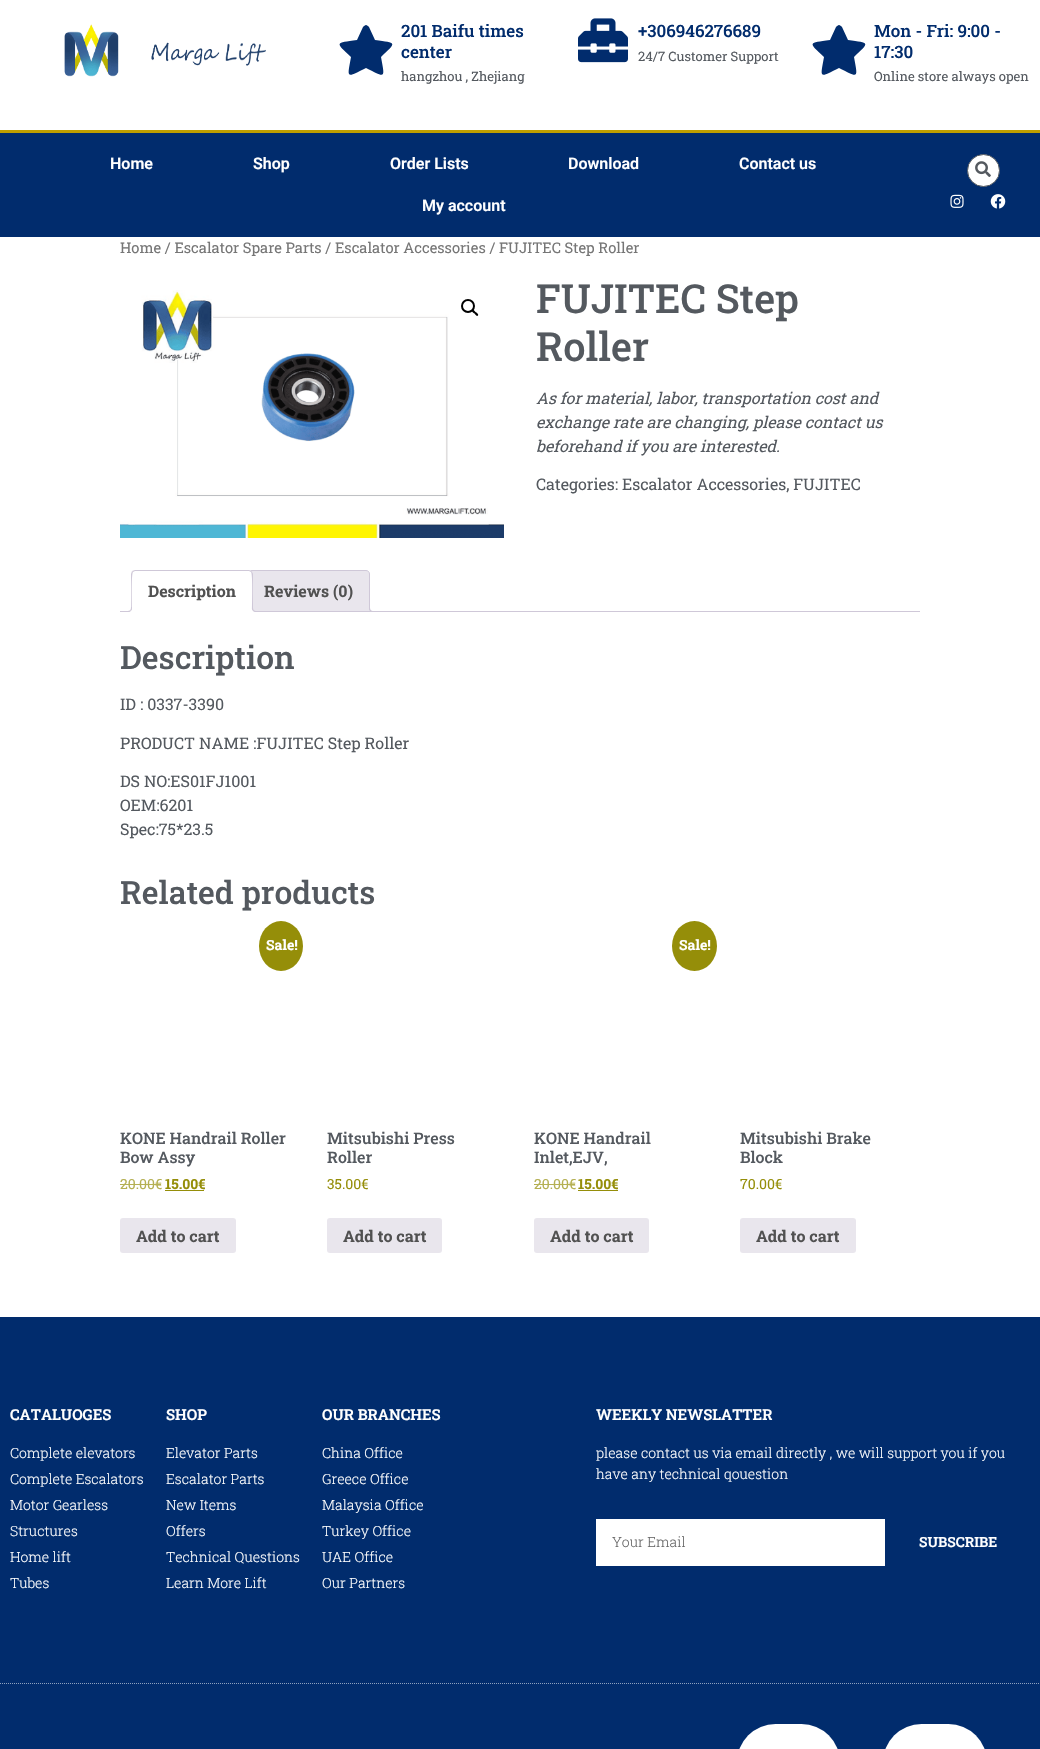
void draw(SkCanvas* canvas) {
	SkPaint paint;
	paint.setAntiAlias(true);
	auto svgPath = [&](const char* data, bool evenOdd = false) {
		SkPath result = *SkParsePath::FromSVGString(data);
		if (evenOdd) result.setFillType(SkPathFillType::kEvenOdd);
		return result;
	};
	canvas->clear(0xffffffff);
	canvas->drawImageRect(SkImages::DeferredFromEncodedData(SkData::MakeFromFileName("img1.png")), SkRect::MakeXYWH(64, 24, 202, 53), SkSamplingOptions());
	paint.setColor(0xff012c6d);
	canvas->drawPath(svgPath("M363 27C364 26 365 25 366 25C367 25 368 26 369 27L375 40C397 43 397 42 381 57C385 79 386 78 366 68C346 78 347 79 351 57C335 42 335 43 357 40Z"), paint);
	SkFont f1(fontMgr->matchFamilyStyle("Roboto Slab", SkFontStyle(500, SkFontStyle::kNormal_Width, SkFontStyle::kUpright_Slant)), 17);
	f1.setSubpixel(true);
	canvas->drawString("201 Baifu times", 401, 37, f1, paint);
	canvas->drawString("center", 401, 58, f1, paint);
	SkFont f2(fontMgr->matchFamilyStyle("Roboto Slab", SkFontStyle::Normal()), 13);
	f2.setSubpixel(true);
	paint.setColor(0xff54595f);
	canvas->drawString("hangzhou , Zhejiang", 401, 81, f2, paint);
	canvas->drawImageRect(SkImages::DeferredFromEncodedData(SkData::MakeFromFileName("img2.png")), SkRect::MakeXYWH(578, 18, 50, 45), SkSamplingOptions());
	paint.setColor(0xff012c6d);
	canvas->drawString("+306946276689", 638, 37, f1, paint);
	paint.setColor(0xff54595f);
	canvas->drawString("24/7 Customer Support", 638, 61, f2, paint);
	paint.setColor(0xff012c6d);
	canvas->drawPath(svgPath("M836 27C837 26 838 25 839 25C840 25 841 26 842 27L848 40C870 43 870 42 854 57C858 79 859 78 839 68C819 78 820 79 824 57C808 42 808 43 830 40Z"), paint);
	canvas->drawString("Mon - Fri: 9:00 -", 874, 37, f1, paint);
	canvas->drawString("17:30", 874, 58, f1, paint);
	paint.setColor(0xff54595f);
	canvas->drawString("Online store always open", 874, 81, f2, paint);
	paint.setColor(0xff012c6d);
	canvas->drawRect(SkRect::MakeXYWH(0, 133, 1040, 104), paint);
	paint.setColor(0xffbf9f00);
	canvas->drawRect(SkRect::MakeXYWH(0, 130, 1040, 3), paint);
	SkFont f3(fontMgr->matchFamilyStyle("Roboto", SkFontStyle(600, SkFontStyle::kNormal_Width, SkFontStyle::kUpright_Slant)), 16);
	f3.setSubpixel(true);
	paint.setColor(0xffffffff);
	canvas->drawString("Home", 110, 169, f3, paint);
	canvas->drawString("Shop", 253, 169, f3, paint);
	canvas->drawString("Order Lists", 390, 169, f3, paint);
	canvas->drawString("Download", 568, 169, f3, paint);
	canvas->drawString("Contact us", 739, 169, f3, paint);
	canvas->drawString("My account", 422, 211, f3, paint);
	canvas->drawCircle(983.5, 170.5, 16, paint);
	paint.setStroke(true);
	paint.setStrokeWidth(1);
	paint.setColor(0xff54595f);
	canvas->drawCircle(983.5, 170.5, 16, paint);
	canvas->drawImageRect(SkImages::DeferredFromEncodedData(SkData::MakeFromFileName("img3.png")), SkRect::MakeXYWH(975, 161, 16, 16), SkSamplingOptions());
	canvas->drawImageRect(SkImages::DeferredFromEncodedData(SkData::MakeFromFileName("img4.png")), SkRect::MakeXYWH(950, 194, 14, 14), SkSamplingOptions());
	canvas->drawImageRect(SkImages::DeferredFromEncodedData(SkData::MakeFromFileName("img5.png")), SkRect::MakeXYWH(990, 194, 16, 15), SkSamplingOptions());
	SkFont f4(fontMgr->matchFamilyStyle("Roboto Slab", SkFontStyle::Normal()), 14.7);
	f4.setSubpixel(true);
	paint.setStroke(false);
	paint.setColor(0xff767676);
	canvas->drawString("Home / Escalator Spare Parts / Escalator Accessories / FUJITEC Step Roller", 120, 253, f4, paint);
	canvas->drawImageRect(SkImages::DeferredFromEncodedData(SkData::MakeFromFileName("img6.png")), SkRect::MakeXYWH(120, 290, 384, 248), SkSamplingOptions());
	paint.setStroke(true);
	paint.setStrokeWidth(2);
	paint.setColor(0xff000000);
	canvas->drawCircle(468, 306, 6, paint);
	paint.setStroke(false);
	canvas->drawPath(svgPath("M472 310C473.5 309 475 311.5 475.5 312C476.5 312.5 479 314.5 478 315.5C476.5 317 475 314 474.5 313.5C473.5 313 471 311 472 310Z"), paint);
	SkFont f5(fontMgr->matchFamilyStyle("Roboto Slab", SkFontStyle(500, SkFontStyle::kNormal_Width, SkFontStyle::kUpright_Slant)), 40);
	f5.setSubpixel(true);
	paint.setColor(0xff54595f);
	canvas->drawString("FUJITEC Step", 536, 313, f5, paint);
	canvas->drawString("Roller", 536, 361, f5, paint);
	SkFont f6(fontMgr->matchFamilyStyle("Roboto Slab", SkFontStyle::Italic()), 16);
	f6.setSubpixel(true);
	canvas->drawString("As for material, labor, transportation cost and", 536, 404, f6, paint);
	canvas->drawString("exchange rate are changing, please contact us", 536, 428, f6, paint);
	canvas->drawString("beforehand if you are interested.", 536, 452, f6, paint);
	SkFont f7(fontMgr->matchFamilyStyle("Roboto Slab", SkFontStyle::Normal()), 16);
	f7.setSubpixel(true);
	canvas->drawString("Categories: Escalator Accessories, FUJITEC", 536, 490, f7, paint);
	paint.setColor(0xffe9e6ed);
	canvas->drawPath(svgPath("M251 570.5H366C368 570.5 369.5 572 369.5 574V611.5H247.5V574C247.5 572 249 570.5 251 570.5Z"), paint);
	paint.setStroke(true);
	paint.setStrokeWidth(1);
	paint.setColor(0xffcfc8d8);
	canvas->drawPath(svgPath("M251 570.5H366C368 570.5 369.5 572 369.5 574V611.5H247.5V574C247.5 572 249 570.5 251 570.5Z"), paint);
	canvas->save();
	canvas->clipRect(SkRect::MakeXYWH(120, 570, 800, 42));
	paint.setStroke(false);
	paint.setColor(0xffe9e6ed);
	canvas->drawPath(svgPath("M367 609C367 612.5 368.5 614 372 614V612C370.5 611.5 369.5 610.5 369 609Z"), paint);
	canvas->restore();
	paint.setColor(0xffcfc8d8);
	canvas->drawPath(svgPath("M369 607H374V612C371.5 612 369 611 369 608ZM370 607H374V611C372 611 370 610.5 370 608Z", true), paint);
	canvas->drawRect(SkRect::MakeXYWH(120, 611, 800, 1), paint);
	paint.setColor(0xffffffff);
	canvas->drawPath(svgPath("M135 570H249C251 570 253 572 253 574V612H131V574C131 572 133 570 135 570Z"), paint);
	paint.setColor(0xffcfc8d8);
	canvas->drawPath(svgPath("M135 570L132 571L133 572L135 571H249L251 572L252 571L249 570Z"), paint);
	canvas->drawPath(svgPath("M253 612V574C253 573 252 572 252 571L251 572C253 574 252 606 252 611Z"), paint);
	paint.setColor(0xffffffff);
	canvas->drawPath(svgPath("M253 612L252 611H132L131 612Z"), paint);
	paint.setColor(0xffcfc8d8);
	canvas->drawPath(svgPath("M131 612L132 611C132 606 131 574 133 572L132 571L131 574Z"), paint);
	SkFont f8(fontMgr->matchFamilyStyle("Roboto Slab", SkFontStyle::Bold()), 16);
	f8.setSubpixel(true);
	paint.setColor(0xff515151);
	canvas->drawString("Description", 148, 597, f8, paint);
	canvas->save();
	canvas->clipRect(SkRect::MakeXYWH(120, 570, 800, 42));
	paint.setColor(0xffffffff);
	canvas->drawPath(svgPath("M129 612V614C132.5 614 134 612.5 134 609H132C131.5 610.5 130.5 611.5 129 612Z"), paint);
	canvas->restore();
	paint.setColor(0xffcfc8d8);
	canvas->drawPath(svgPath("M127 607H132C132 610.5 130.5 612 127 612ZM127 607H131C131 610 130 611 127 611Z", true), paint);
	canvas->save();
	canvas->clipRect(SkRect::MakeXYWH(120, 570, 800, 42));
	paint.setColor(0xffffffff);
	canvas->drawPath(svgPath("M250 609C250 612.5 251.5 614 255 614V612C253.5 611.5 252.5 610.5 252 609Z"), paint);
	canvas->restore();
	paint.setColor(0xffcfc8d8);
	canvas->drawPath(svgPath("M252 607H257V612C254.5 612 252 611 252 608ZM253 607H257V611C255 611 253 610.5 253 608Z", true), paint);
	paint.setColor(0xff515151);
	canvas->drawString("Reviews (0)", 264, 597, f8, paint);
	SkFont f9(fontMgr->matchFamilyStyle("Roboto Slab", SkFontStyle(500, SkFontStyle::kNormal_Width, SkFontStyle::kUpright_Slant)), 32);
	f9.setSubpixel(true);
	paint.setColor(0xff54595f);
	canvas->drawString("Description", 120, 669, f9, paint);
	canvas->drawString("ID : 0337-3390", 120, 710, f7, paint);
	canvas->drawString("PRODUCT NAME :FUJITEC Step Roller", 120, 749, f7, paint);
	canvas->drawString("DS NO:ES01FJ1001", 120, 787, f7, paint);
	canvas->drawString("OEM:6201", 120, 811, f7, paint);
	canvas->drawString("Spec:75*23.5", 120, 835, f7, paint);
	canvas->drawString("Related products", 120, 904, f9, paint);
	paint.setColor(0xff958e09);
	canvas->drawOval(SkRect::MakeXYWH(259, 921, 44, 50), paint);
	SkFont f10(fontMgr->matchFamilyStyle("Roboto Slab", SkFontStyle::Bold()), 14);
	f10.setSubpixel(true);
	paint.setColor(0xffffffff);
	canvas->drawString("Sale!", 266, 950, f10, paint);
	SkFont f11(fontMgr->matchFamilyStyle("Roboto Slab", SkFontStyle(500, SkFontStyle::kNormal_Width, SkFontStyle::kUpright_Slant)), 16);
	f11.setSubpixel(true);
	paint.setColor(0xff54595f);
	canvas->drawString("KONE Handrail Roller", 120, 1144, f11, paint);
	canvas->drawString("Bow Assy", 120, 1163, f11, paint);
	SkFont f12(fontMgr->matchFamilyStyle("Roboto Slab", SkFontStyle::Normal()), 14);
	f12.setSubpixel(true);
	paint.setColor(0xffb5b053);
	canvas->drawString("20.00€", 120, 1189, f12, paint);
	canvas->drawRect(SkRect::MakeXYWH(120, 1184, 41, 1), paint);
	paint.setColor(0xff958e09);
	canvas->drawString("15.00€", 165, 1189, f10, paint);
	canvas->drawRect(SkRect::MakeXYWH(165, 1190, 39, 1), paint);
	paint.setColor(0xffe9e6ed);
	canvas->drawRoundRect(SkRect::MakeXYWH(120, 1218, 116, 35), 3, 3, paint);
	paint.setColor(0xff515151);
	canvas->drawString("Add to cart", 136, 1242, f8, paint);
	paint.setColor(0xff54595f);
	canvas->drawString("Mitsubishi Press", 327, 1144, f11, paint);
	canvas->drawString("Roller", 327, 1163, f11, paint);
	paint.setColor(0xff958e09);
	canvas->drawString("35.00€", 327, 1189, f12, paint);
	paint.setColor(0xffe9e6ed);
	canvas->drawRoundRect(SkRect::MakeXYWH(327, 1218, 115, 35), 3, 3, paint);
	paint.setColor(0xff515151);
	canvas->drawString("Add to cart", 343, 1242, f8, paint);
	paint.setColor(0xff958e09);
	canvas->drawOval(SkRect::MakeXYWH(672, 921, 45, 50), paint);
	paint.setColor(0xffffffff);
	canvas->drawString("Sale!", 679, 950, f10, paint);
	paint.setColor(0xff54595f);
	canvas->drawString("KONE Handrail", 534, 1144, f11, paint);
	canvas->drawString("Inlet,EJV,", 534, 1163, f11, paint);
	paint.setColor(0xffb5b053);
	canvas->drawString("20.00€", 534, 1189, f12, paint);
	canvas->drawRect(SkRect::MakeXYWH(534, 1184, 41, 1), paint);
	paint.setColor(0xff958e09);
	canvas->drawString("15.00€", 578, 1189, f10, paint);
	canvas->drawRect(SkRect::MakeXYWH(578, 1190, 40, 1), paint);
	paint.setColor(0xffe9e6ed);
	canvas->drawRoundRect(SkRect::MakeXYWH(534, 1218, 115, 35), 3, 3, paint);
	paint.setColor(0xff515151);
	canvas->drawString("Add to cart", 550, 1242, f8, paint);
	paint.setColor(0xff54595f);
	canvas->drawString("Mitsubishi Brake", 740, 1144, f11, paint);
	canvas->drawString("Block", 740, 1163, f11, paint);
	paint.setColor(0xff958e09);
	canvas->drawString("70.00€", 740, 1189, f12, paint);
	paint.setColor(0xffe9e6ed);
	canvas->drawRoundRect(SkRect::MakeXYWH(740, 1218, 116, 35), 3, 3, paint);
	paint.setColor(0xff515151);
	canvas->drawString("Add to cart", 756, 1242, f8, paint);
	paint.setColor(0xff012c6d);
	canvas->drawRect(SkRect::MakeXYWH(0, 1317, 1040, 432), paint);
	SkFont f13(fontMgr->matchFamilyStyle("Roboto Slab", SkFontStyle(600, SkFontStyle::kNormal_Width, SkFontStyle::kUpright_Slant)), 15);
	f13.setSubpixel(true);
	paint.setColor(0xffffffff);
	canvas->drawString("CATALUOGES", 10, 1420, f13, paint);
	SkFont f14(fontMgr->matchFamilyStyle("Roboto Slab", SkFontStyle(300, SkFontStyle::kNormal_Width, SkFontStyle::kUpright_Slant)), 14);
	f14.setSubpixel(true);
	canvas->drawString("Complete elevators", 10, 1458, f14, paint);
	canvas->drawString("Complete Escalators", 10, 1484, f14, paint);
	canvas->drawString("Motor Gearless", 10, 1510, f14, paint);
	canvas->drawString("Structures", 10, 1536, f14, paint);
	canvas->drawString("Home lift", 10, 1562, f14, paint);
	canvas->drawString("Tubes", 10, 1588, f14, paint);
	canvas->drawString("SHOP", 166, 1420, f13, paint);
	canvas->drawString("Elevator Parts", 166, 1458, f14, paint);
	canvas->drawString("Escalator Parts", 166, 1484, f14, paint);
	canvas->drawString("New Items", 166, 1510, f14, paint);
	canvas->drawString("Offers", 166, 1536, f14, paint);
	canvas->drawString("Technical Questions", 166, 1562, f14, paint);
	canvas->drawString("Learn More Lift", 166, 1588, f14, paint);
	canvas->drawString("OUR BRANCHES", 322, 1420, f13, paint);
	canvas->drawString("China Office", 322, 1458, f14, paint);
	canvas->drawString("Greece Office", 322, 1484, f14, paint);
	canvas->drawString("Malaysia Office", 322, 1510, f14, paint);
	canvas->drawString("Turkey Office", 322, 1536, f14, paint);
	canvas->drawString("UAE Office", 322, 1562, f14, paint);
	canvas->drawString("Our Partners", 322, 1588, f14, paint);
	canvas->drawString("WEEKLY NEWSLATTER", 596, 1420, f13, paint);
	canvas->drawString("please contact us via email directly , we will support you if you", 596, 1458, f14, paint);
	canvas->drawString("have any technical qouestion", 596, 1479, f14, paint);
	canvas->drawRect(SkRect::MakeXYWH(596, 1519, 289, 47), paint);
	paint.setColor(0xff666666);
	canvas->drawString("Your Email", 612, 1547, f14, paint);
	SkFont f15(fontMgr->matchFamilyStyle("Roboto Slab", SkFontStyle(600, SkFontStyle::kNormal_Width, SkFontStyle::kUpright_Slant)), 14);
	f15.setSubpixel(true);
	paint.setColor(0xffffffff);
	canvas->drawString("SUBSCRIBE", 919, 1547, f15, paint);
	paint.setStroke(true);
	paint.setColor(0xff8fa2bf);
	paint.setPathEffect(SkDashPathEffect::Make({{1, 1}}, 0));
	canvas->drawPath(svgPath("M0 1683.5H1040"), paint);
	paint.setPathEffect(nullptr);
	paint.setStroke(false);
	paint.setColor(0xffffffff);
	canvas->drawRoundRect(SkRect::MakeXYWH(737, 1724, 103, 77), 51.5, 51.5, paint);
	canvas->drawRoundRect(SkRect::MakeXYWH(883, 1724, 104, 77), 52, 52, paint);
}
